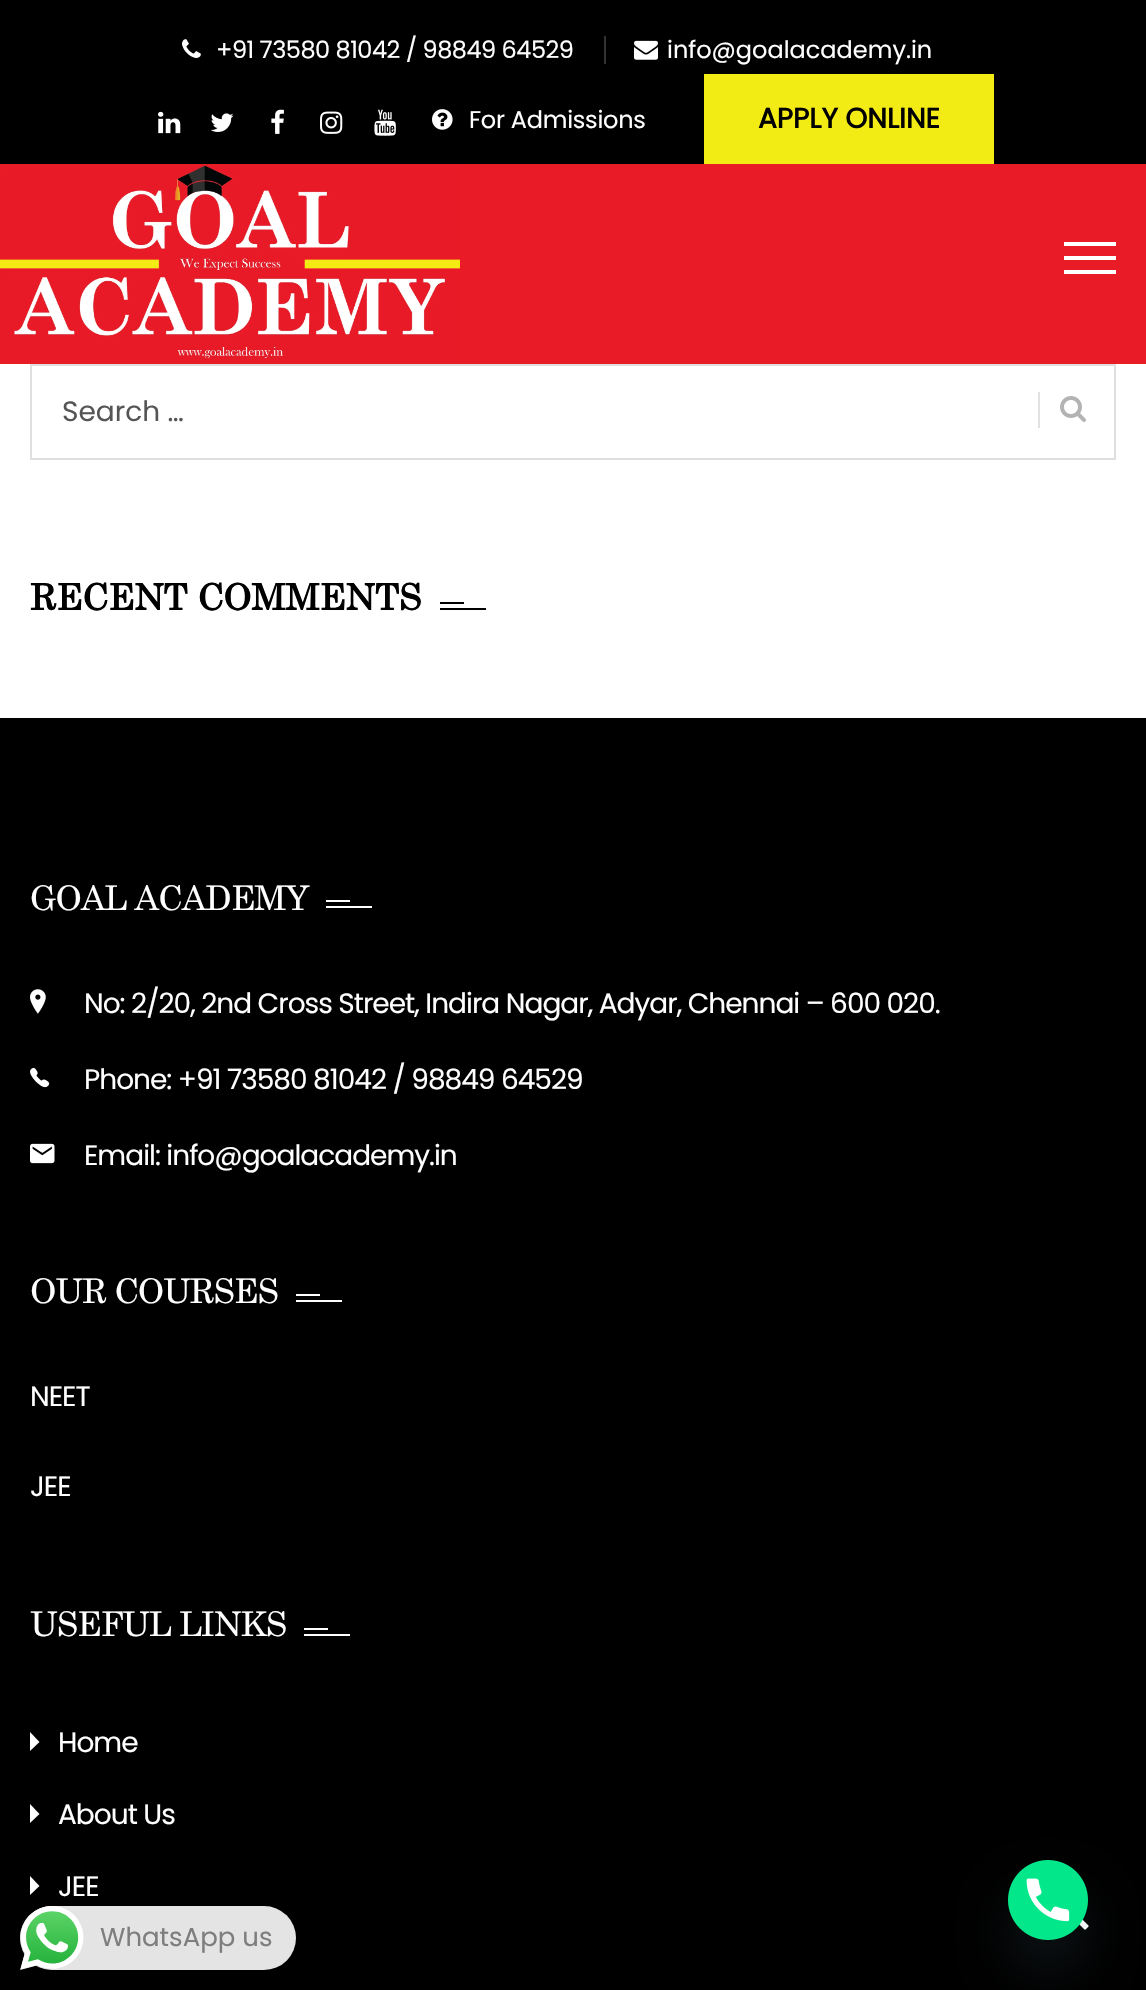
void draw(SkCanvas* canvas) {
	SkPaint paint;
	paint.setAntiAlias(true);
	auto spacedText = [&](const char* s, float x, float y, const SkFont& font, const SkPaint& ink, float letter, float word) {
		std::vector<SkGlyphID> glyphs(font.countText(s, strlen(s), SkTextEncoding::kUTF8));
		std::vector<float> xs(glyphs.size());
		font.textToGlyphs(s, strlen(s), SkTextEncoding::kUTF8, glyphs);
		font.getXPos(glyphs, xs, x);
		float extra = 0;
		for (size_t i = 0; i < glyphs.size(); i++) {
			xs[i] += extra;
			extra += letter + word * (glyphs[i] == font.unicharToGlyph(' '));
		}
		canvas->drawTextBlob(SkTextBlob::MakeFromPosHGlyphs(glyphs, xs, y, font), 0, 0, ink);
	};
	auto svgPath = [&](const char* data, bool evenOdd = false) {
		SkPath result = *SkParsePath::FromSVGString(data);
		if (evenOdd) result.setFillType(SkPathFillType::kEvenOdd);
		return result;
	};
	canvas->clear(0xff000000);
	canvas->drawImageRect(SkImages::DeferredFromEncodedData(SkData::MakeFromFileName("img1.png")), SkRect::MakeXYWH(182, 39, 19, 19), SkSamplingOptions());
	SkFont f1(fontMgr->matchFamilyStyle("Poppins", SkFontStyle::Normal()), 24);
	f1.setSubpixel(true);
	paint.setColor(0xffffffff);
	spacedText("+91 73580 81042 / 98849 64529", 216, 58, f1, paint, -0.5, 0);
	paint.setColor(0xff333333);
	canvas->drawRect(SkRect::MakeXYWH(604, 36, 2, 28), paint);
	canvas->drawImageRect(SkImages::DeferredFromEncodedData(SkData::MakeFromFileName("img2.png")), SkRect::MakeXYWH(634, 40, 24, 20), SkSamplingOptions());
	paint.setColor(0xffffffff);
	canvas->drawString("info@goalacademy.in", 667, 58, f1, paint);
	canvas->drawImageRect(SkImages::DeferredFromEncodedData(SkData::MakeFromFileName("img3.png")), SkRect::MakeXYWH(158, 111, 23, 23), SkSamplingOptions());
	canvas->drawImageRect(SkImages::DeferredFromEncodedData(SkData::MakeFromFileName("img4.png")), SkRect::MakeXYWH(210, 113, 24, 19), SkSamplingOptions());
	canvas->drawImageRect(SkImages::DeferredFromEncodedData(SkData::MakeFromFileName("img5.png")), SkRect::MakeXYWH(271, 109, 13, 25), SkSamplingOptions());
	canvas->drawImageRect(SkImages::DeferredFromEncodedData(SkData::MakeFromFileName("img6.png")), SkRect::MakeXYWH(320, 111, 23, 23), SkSamplingOptions());
	canvas->drawImageRect(SkImages::DeferredFromEncodedData(SkData::MakeFromFileName("img7.png")), SkRect::MakeXYWH(374, 109, 22, 27), SkSamplingOptions());
	canvas->drawImageRect(SkImages::DeferredFromEncodedData(SkData::MakeFromFileName("img8.png")), SkRect::MakeXYWH(432, 109, 21, 21), SkSamplingOptions());
	spacedText("For Admissions", 469, 128, f1, paint, -0.25, 0);
	paint.setColor(0xfff3eb14);
	canvas->drawRect(SkRect::MakeXYWH(704, 74, 290, 90), paint);
	SkFont f2(fontMgr->matchFamilyStyle("Poppins", SkFontStyle::Bold()), 28);
	f2.setSubpixel(true);
	paint.setColor(0xff000000);
	canvas->drawString("APPLY ONLINE", 758, 128, f2, paint);
	paint.setColor(0xffe91b27);
	canvas->drawRect(SkRect::MakeXYWH(0, 164, 1146, 200), paint);
	canvas->drawImageRect(SkImages::DeferredFromEncodedData(SkData::MakeFromFileName("img9.png")), SkRect::MakeXYWH(0, 165, 460, 195), SkSamplingOptions());
	paint.setColor(0xffffffff);
	canvas->drawRect(SkRect::MakeXYWH(1064, 242, 52, 4), paint);
	canvas->drawRect(SkRect::MakeXYWH(1064, 256, 52, 4), paint);
	canvas->drawRect(SkRect::MakeXYWH(1064, 270, 52, 4), paint);
	canvas->drawRect(SkRect::MakeXYWH(0, 364, 1146, 354), paint);
	paint.setStroke(true);
	paint.setStrokeWidth(2);
	paint.setColor(0xffdfdfdf);
	canvas->drawRect(SkRect::MakeXYWH(31, 365, 1084, 94), paint);
	SkFont f3(fontMgr->matchFamilyStyle("Poppins", SkFontStyle::Normal()), 28);
	f3.setSubpixel(true);
	paint.setStroke(false);
	paint.setColor(0xff555555);
	canvas->drawString("Search …", 62, 421, f3, paint);
	canvas->drawImageRect(SkImages::DeferredFromEncodedData(SkData::MakeFromFileName("img10.png")), SkRect::MakeXYWH(1060, 396, 26, 26), SkSamplingOptions());
	paint.setColor(0xffe1e1e1);
	canvas->drawRect(SkRect::MakeXYWH(1038, 392, 2, 36), paint);
	SkFont f4(fontMgr->matchFamilyStyle("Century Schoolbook", SkFontStyle::Bold()), 36);
	f4.setSubpixel(true);
	paint.setColor(0xff000000);
	canvas->drawString("RECENT COMMENTS", 30, 610, f4, paint);
	canvas->drawRect(SkRect::MakeXYWH(440, 602, 24, 2), paint);
	canvas->drawRect(SkRect::MakeXYWH(440, 608, 46, 2), paint);
	SkFont f5(fontMgr->matchFamilyStyle("Century Schoolbook", SkFontStyle::Normal()), 34);
	f5.setSubpixel(true);
	paint.setColor(0xffffffff);
	spacedText("GOAL ACADEMY", 30, 910, f5, paint, -1, 0);
	canvas->drawRect(SkRect::MakeXYWH(326, 900, 24, 2), paint);
	canvas->drawRect(SkRect::MakeXYWH(326, 906, 46, 2), paint);
	canvas->drawImageRect(SkImages::DeferredFromEncodedData(SkData::MakeFromFileName("img11.png")), SkRect::MakeXYWH(30, 989, 16, 25), SkSamplingOptions());
	spacedText("No: 2/20, 2nd Cross Street, Indira Nagar, Adyar, Chennai – 600 020.", 84, 1013, f3, paint, -1, 0);
	canvas->drawImageRect(SkImages::DeferredFromEncodedData(SkData::MakeFromFileName("img12.png")), SkRect::MakeXYWH(30, 1067, 20, 21), SkSamplingOptions());
	spacedText("Phone: +91 73580 81042 / 98849 64529", 84, 1089, f3, paint, -1, 0);
	canvas->drawImageRect(SkImages::DeferredFromEncodedData(SkData::MakeFromFileName("img13.png")), SkRect::MakeXYWH(30, 1143, 25, 21), SkSamplingOptions());
	spacedText("Email: info@goalacademy.in", 84, 1165, f3, paint, -1, 0);
	spacedText("OUR COURSES", 30, 1303, f5, paint, -1, 0);
	canvas->drawRect(SkRect::MakeXYWH(296, 1294, 24, 2), paint);
	canvas->drawRect(SkRect::MakeXYWH(296, 1300, 46, 2), paint);
	spacedText("NEET", 30, 1406, f3, paint, -1, 0);
	spacedText("JEE", 30, 1496, f3, paint, -1, 0);
	spacedText("USEFUL LINKS", 30, 1636, f5, paint, -1, 0);
	canvas->drawRect(SkRect::MakeXYWH(304, 1628, 24, 2), paint);
	canvas->drawRect(SkRect::MakeXYWH(304, 1634, 46, 2), paint);
	canvas->drawPath(svgPath("M30 1732L39.5 1742L30 1751Z"), paint);
	spacedText("Home", 58, 1752, f3, paint, -1, 0);
	canvas->drawPath(svgPath("M30 1804L39.5 1814L30 1823Z"), paint);
	spacedText("About Us", 58, 1824, f3, paint, -1, 0);
	canvas->drawPath(svgPath("M30 1876L39.5 1886L30 1895Z"), paint);
	spacedText("JEE", 58, 1896, f3, paint, -1, 0);
	canvas->drawImageRect(SkImages::DeferredFromEncodedData(SkData::MakeFromFileName("img14.png")), SkRect::MakeXYWH(1079, 1919, 10, 11), SkSamplingOptions());
	paint.setColor(0x2949687e);
	paint.setMaskFilter(SkMaskFilter::MakeBlur(kNormal_SkBlurStyle, 24));
	canvas->drawRoundRect(SkRect::MakeXYWH(1008, 1892, 80, 80), 40, 40, paint);
	paint.setMaskFilter(nullptr);
	canvas->drawImageRect(SkImages::DeferredFromEncodedData(SkData::MakeFromFileName("img15.png")), SkRect::MakeXYWH(1008, 1860, 80, 80), SkSamplingOptions());
	paint.setColor(0xffe4e4e4);
	canvas->drawRoundRect(SkRect::MakeXYWH(20, 1906, 276, 64), 32, 32, paint);
	canvas->drawImageRect(SkImages::DeferredFromEncodedData(SkData::MakeFromFileName("img16.png")), SkRect::MakeXYWH(20, 1906, 64, 64), SkSamplingOptions());
	SkFont f6(fontMgr->matchFamilyStyle("Poppins", SkFontStyle::Normal()), 26);
	f6.setSubpixel(true);
	paint.setColor(0xff7f7d7d);
	canvas->drawString("WhatsApp us", 100, 1946, f6, paint);
}
